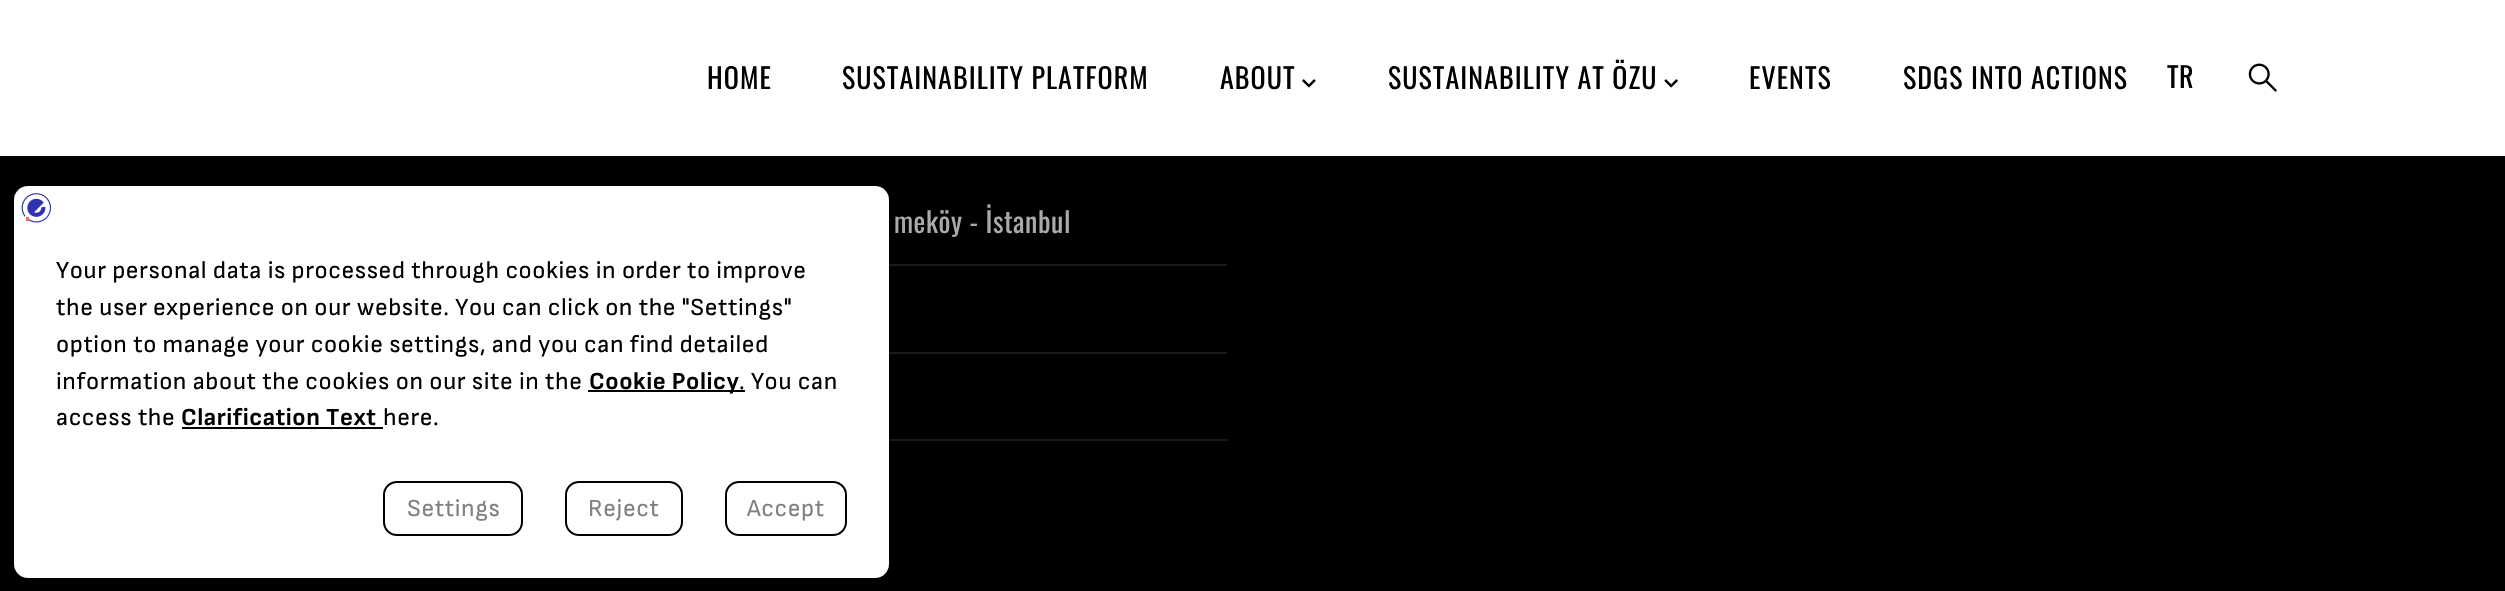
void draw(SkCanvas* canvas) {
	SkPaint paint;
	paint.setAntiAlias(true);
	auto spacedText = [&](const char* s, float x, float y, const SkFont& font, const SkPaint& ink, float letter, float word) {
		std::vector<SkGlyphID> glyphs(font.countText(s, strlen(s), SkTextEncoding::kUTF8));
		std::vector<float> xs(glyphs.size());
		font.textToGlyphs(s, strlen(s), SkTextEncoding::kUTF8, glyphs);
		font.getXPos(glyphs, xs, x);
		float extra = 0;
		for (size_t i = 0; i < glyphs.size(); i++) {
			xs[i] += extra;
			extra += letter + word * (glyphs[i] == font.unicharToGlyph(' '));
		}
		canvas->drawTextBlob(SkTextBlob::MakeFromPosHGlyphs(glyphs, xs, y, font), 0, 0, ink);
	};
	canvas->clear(0xff000000);
	paint.setColor(0xffffffff);
	canvas->drawRect(SkRect::MakeXYWH(0, 0, 2505, 156), paint);
	SkFont f1(fontMgr->matchFamilyStyle("Oswald", SkFontStyle::Normal()), 28);
	f1.setSubpixel(true);
	paint.setColor(0xff000000);
	spacedText("HOME", 707, 89, f1, paint, 1.05, 0);
	spacedText("SUSTAINABILITY PLATFORM", 842, 89, f1, paint, 1.05, 0);
	spacedText("ABOUT", 1220, 89, f1, paint, 1.05, 0);
	canvas->drawImageRect(SkImages::DeferredFromEncodedData(SkData::MakeFromFileName("img1.png")), SkRect::MakeXYWH(1302, 79, 14, 9), SkSamplingOptions());
	spacedText("SUSTAINABILITY AT ÖZU", 1388, 89, f1, paint, 1.05, 0);
	canvas->drawImageRect(SkImages::DeferredFromEncodedData(SkData::MakeFromFileName("img2.png")), SkRect::MakeXYWH(1664, 79, 14, 9), SkSamplingOptions());
	spacedText("EVENTS", 1749, 89, f1, paint, 1.05, 0);
	spacedText("SDGS INTO ACTIONS", 1903, 89, f1, paint, 1.05, 0);
	canvas->drawImageRect(SkImages::DeferredFromEncodedData(SkData::MakeFromFileName("img3.png")), SkRect::MakeXYWH(2248, 63, 29, 29), SkSamplingOptions());
	spacedText("TR", 2167, 88, f1, paint, 0.55, 0);
	paint.setColor(0xff1a1a1a);
	canvas->drawRect(SkRect::MakeXYWH(889, 264, 338, 2), paint);
	paint.setColor(0xffaaaaaa);
	spacedText("meköy - İstanbul", 894, 233, f1, paint, 0.55, 0);
	paint.setColor(0xff1a1a1a);
	canvas->drawRect(SkRect::MakeXYWH(889, 352, 338, 2), paint);
	canvas->drawRect(SkRect::MakeXYWH(889, 439, 338, 2), paint);
	paint.setColor(0xffffffff);
	canvas->drawRoundRect(SkRect::MakeXYWH(14, 186, 875, 392), 14, 14, paint);
	canvas->drawImageRect(SkImages::DeferredFromEncodedData(SkData::MakeFromFileName("img4.png")), SkRect::MakeXYWH(21, 193, 30, 30), SkSamplingOptions());
	SkFont f2(fontMgr->matchFamilyStyle("Sofia Sans", SkFontStyle::Normal()), 24.5);
	f2.setSubpixel(true);
	paint.setColor(0xff000000);
	spacedText("Your personal data is processed through cookies in order to improve", 56, 278, f2, paint, 0.55, 0);
	spacedText("the user experience on our website. You can click on the \"Settings\"", 56, 315, f2, paint, 0.55, 0);
	spacedText("option to manage your cookie settings, and you can find detailed", 56, 352, f2, paint, 0.55, 0);
	spacedText("information about the cookies on our site in the", 56, 389, f2, paint, 0.55, 0);
	canvas->drawRect(SkRect::MakeXYWH(588, 390, 157, 2), paint);
	SkFont f3(fontMgr->matchFamilyStyle("Sofia Sans", SkFontStyle::Bold()), 24.5);
	f3.setSubpixel(true);
	spacedText("Cookie Policy", 589, 389, f3, paint, 0.55, 0);
	spacedText(". You can", 739, 389, f2, paint, 0.55, 0);
	spacedText("access the", 56, 425, f2, paint, 0.55, 0);
	spacedText("Clarification Text", 181, 425, f3, paint, 0.55, 0);
	canvas->drawRect(SkRect::MakeXYWH(182, 427, 201, 2), paint);
	spacedText("here.", 383, 425, f2, paint, 0.55, 0);
	paint.setStroke(true);
	paint.setStrokeWidth(2);
	canvas->drawRoundRect(SkRect::MakeXYWH(384, 482, 138, 53), 13, 13, paint);
	paint.setStroke(false);
	paint.setColor(0xff818181);
	spacedText("Settings", 407, 516, f2, paint, 0.55, 0);
	paint.setStroke(true);
	paint.setColor(0xff000000);
	canvas->drawRoundRect(SkRect::MakeXYWH(566, 482, 116, 53), 13, 13, paint);
	paint.setStroke(false);
	paint.setColor(0xff818181);
	spacedText("Reject", 588, 516, f2, paint, 0.55, 0);
	paint.setStroke(true);
	paint.setColor(0xff000000);
	canvas->drawRoundRect(SkRect::MakeXYWH(726, 482, 120, 53), 13, 13, paint);
	paint.setStroke(false);
	paint.setColor(0xff818181);
	spacedText("Accept", 747, 516, f2, paint, 0.55, 0);
}
